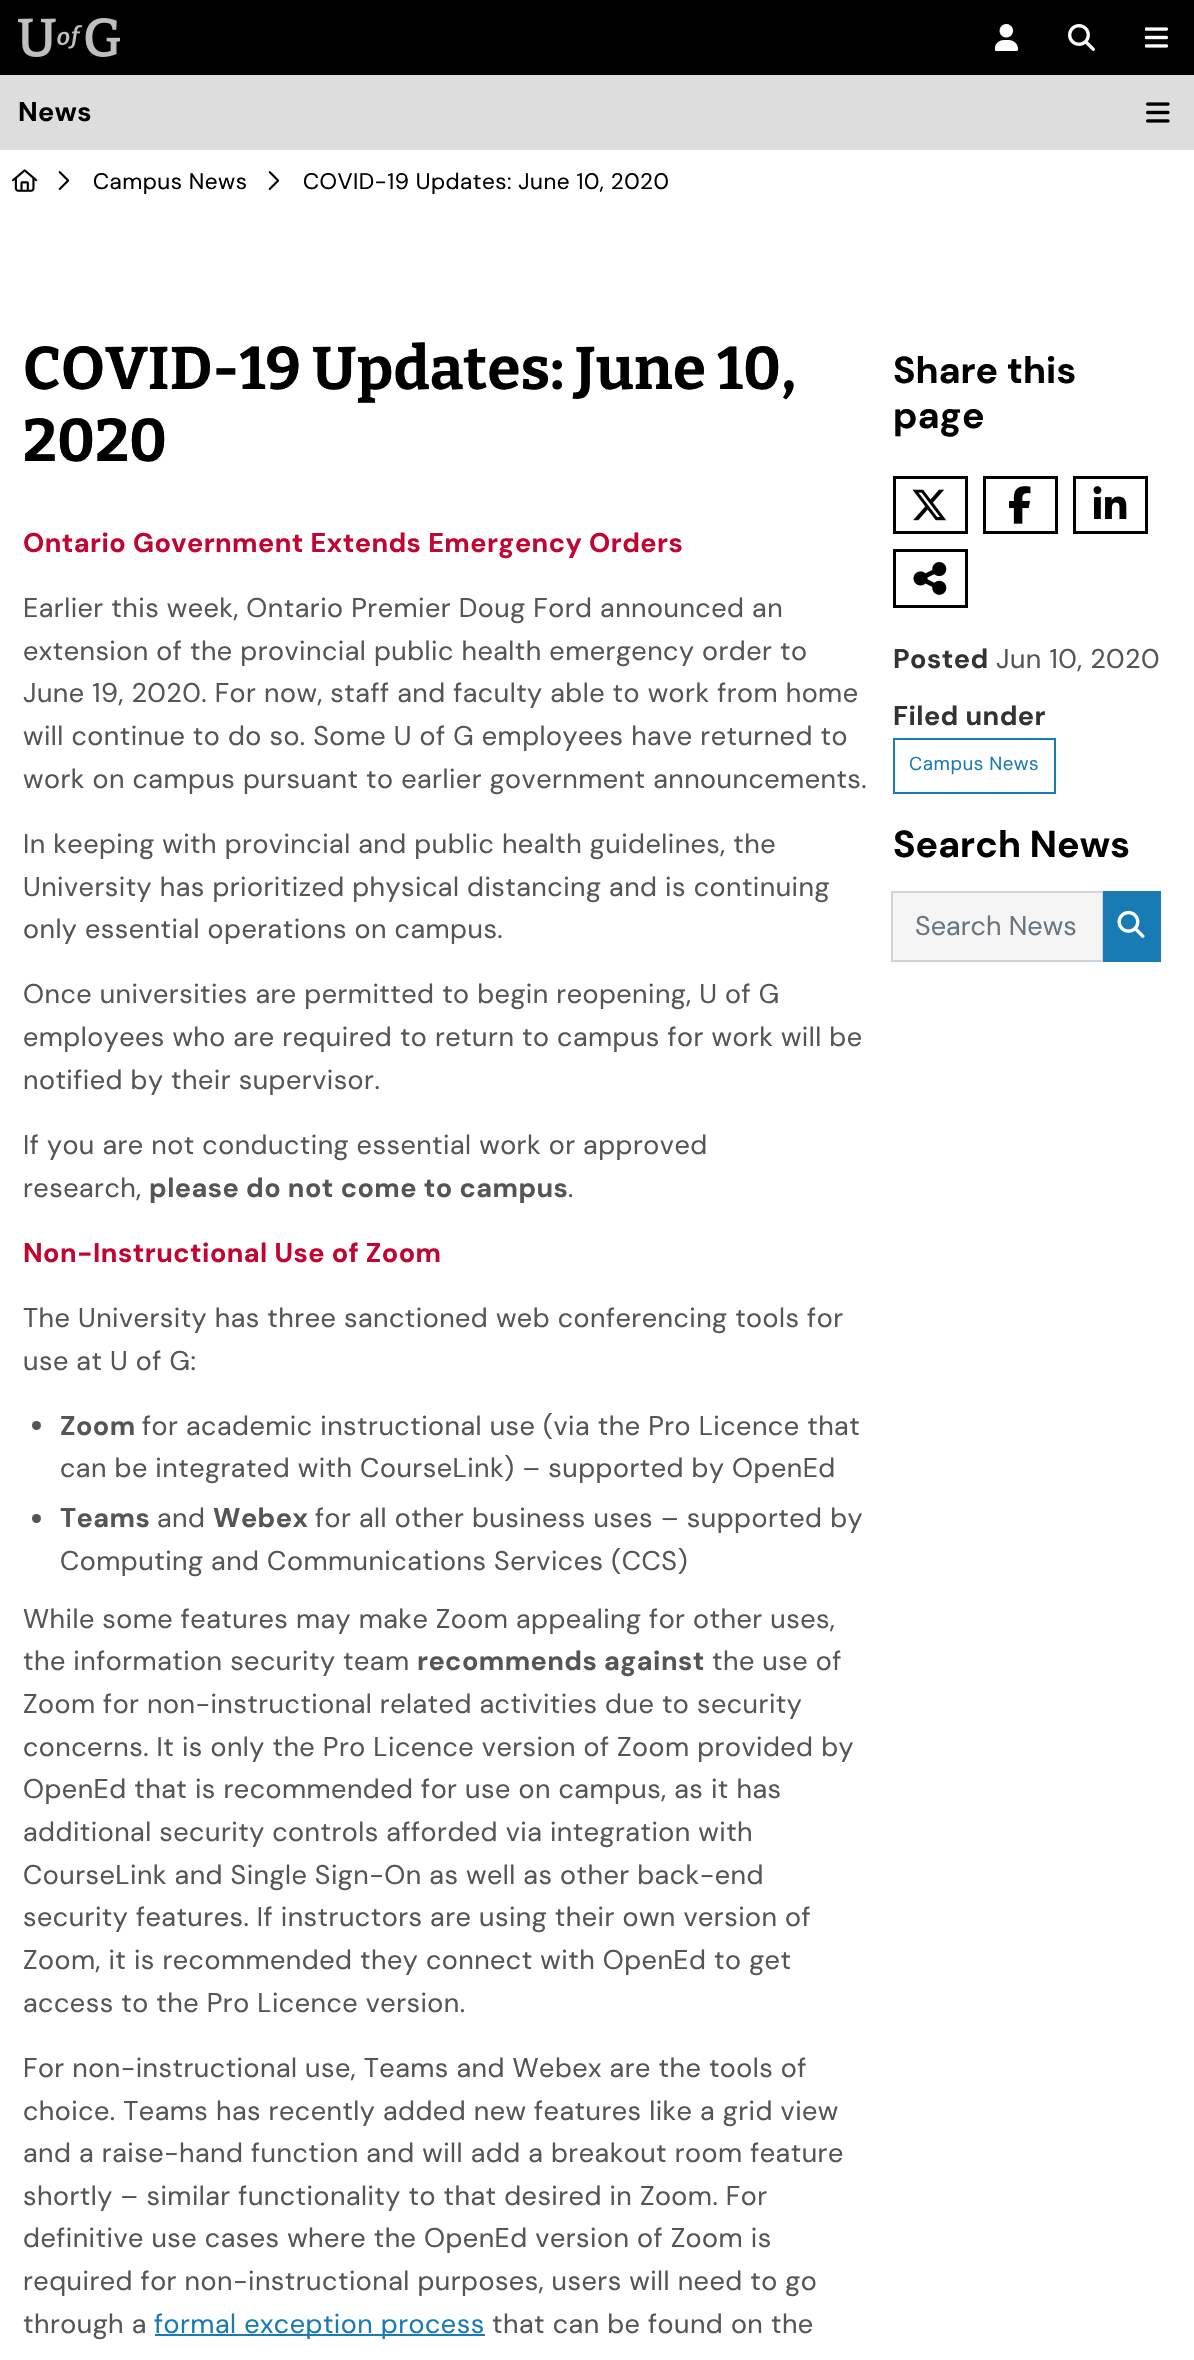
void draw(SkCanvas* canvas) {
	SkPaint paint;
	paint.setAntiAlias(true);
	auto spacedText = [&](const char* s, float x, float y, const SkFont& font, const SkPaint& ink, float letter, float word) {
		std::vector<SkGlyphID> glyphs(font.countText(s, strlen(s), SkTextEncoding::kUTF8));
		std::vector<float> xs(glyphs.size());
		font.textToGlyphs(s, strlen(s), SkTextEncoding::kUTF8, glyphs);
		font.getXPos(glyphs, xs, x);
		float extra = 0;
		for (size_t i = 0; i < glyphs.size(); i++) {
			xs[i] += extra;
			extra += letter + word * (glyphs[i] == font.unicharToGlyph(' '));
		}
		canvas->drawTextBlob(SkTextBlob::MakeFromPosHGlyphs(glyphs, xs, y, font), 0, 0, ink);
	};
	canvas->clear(0xffffffff);
	paint.setColor(0xff000000);
	canvas->drawRect(SkRect::MakeXYWH(0, 0, 1194, 75), paint);
	canvas->drawImageRect(SkImages::DeferredFromEncodedData(SkData::MakeFromFileName("img1.png")), SkRect::MakeXYWH(18, 18, 102, 39), SkSamplingOptions());
	canvas->drawImageRect(SkImages::DeferredFromEncodedData(SkData::MakeFromFileName("img2.png")), SkRect::MakeXYWH(995, 24, 24, 27), SkSamplingOptions());
	canvas->drawImageRect(SkImages::DeferredFromEncodedData(SkData::MakeFromFileName("img3.png")), SkRect::MakeXYWH(1068, 24, 27, 27), SkSamplingOptions());
	canvas->drawImageRect(SkImages::DeferredFromEncodedData(SkData::MakeFromFileName("img4.png")), SkRect::MakeXYWH(1145, 27, 24, 21), SkSamplingOptions());
	paint.setColor(0xffdddddd);
	canvas->drawRect(SkRect::MakeXYWH(0, 75, 1194, 75), paint);
	SkFont f1(fontMgr->matchFamilyStyle("DM Sans", SkFontStyle::Bold()), 27);
	f1.setSubpixel(true);
	paint.setColor(0xff000000);
	spacedText("News", 18, 121, f1, paint, 0.45, 0);
	canvas->drawImageRect(SkImages::DeferredFromEncodedData(SkData::MakeFromFileName("img5.png")), SkRect::MakeXYWH(1146, 102, 24, 21), SkSamplingOptions());
	canvas->drawImageRect(SkImages::DeferredFromEncodedData(SkData::MakeFromFileName("img6.png")), SkRect::MakeXYWH(12, 169, 26, 23), SkSamplingOptions());
	canvas->drawImageRect(SkImages::DeferredFromEncodedData(SkData::MakeFromFileName("img7.png")), SkRect::MakeXYWH(58, 171, 12, 19), SkSamplingOptions());
	SkFont f2(fontMgr->matchFamilyStyle("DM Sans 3", SkFontStyle::Normal()), 22.5);
	f2.setSubpixel(true);
	spacedText("Campus News", 93, 189, f2, paint, 0.45, 0);
	canvas->drawImageRect(SkImages::DeferredFromEncodedData(SkData::MakeFromFileName("img7.png")), SkRect::MakeXYWH(268, 171, 12, 19), SkSamplingOptions());
	spacedText("COVID-19 Updates: June 10, 2020", 303, 189, f2, paint, 0.45, 0);
	SkFont f3(fontMgr->matchFamilyStyle("Bitter", SkFontStyle(100, SkFontStyle::kNormal_Width, SkFontStyle::kUpright_Slant)), 60);
	f3.setSubpixel(true);
	spacedText("COVID-19 Updates: June 10,", 23, 389, f3, paint, 0.15, 0);
	spacedText("2020", 23, 461, f3, paint, 0.15, 0);
	paint.setColor(0xffc20430);
	spacedText("Ontario Government Extends Emergency Orders", 23, 552, f1, paint, 0.45, 0);
	SkFont f4(fontMgr->matchFamilyStyle("DM Sans", SkFontStyle::Normal()), 27);
	f4.setSubpixel(true);
	paint.setColor(0xff555555);
	spacedText("Earlier this week, Ontario Premier Doug Ford announced an", 23, 617, f4, paint, 0.45, 0);
	spacedText("extension of the provincial public health emergency order to", 23, 660, f4, paint, 0.45, 0);
	spacedText("June 19, 2020. For now, staff and faculty able to work from home", 23, 702, f4, paint, 0.45, 0);
	spacedText("will continue to do so. Some U of G employees have returned to", 23, 745, f4, paint, 0.45, 0);
	spacedText("work on campus pursuant to earlier government announcements.", 23, 788, f4, paint, 0.45, 0);
	spacedText("In keeping with provincial and public health guidelines, the", 23, 853, f4, paint, 0.45, 0);
	spacedText("University has prioritized physical distancing and is continuing", 23, 896, f4, paint, 0.45, 0);
	spacedText("only essential operations on campus.", 23, 938, f4, paint, 0.45, 0);
	spacedText("Once universities are permitted to begin reopening, U of G", 23, 1003, f4, paint, 0.45, 0);
	spacedText("employees who are required to return to campus for work will be", 23, 1046, f4, paint, 0.45, 0);
	spacedText("notified by their supervisor.", 23, 1089, f4, paint, 0.45, 0);
	spacedText("If you are not conducting essential work or approved", 23, 1154, f4, paint, 0.45, 0);
	spacedText("research,", 23, 1197, f4, paint, 0.45, 0);
	spacedText("please do not come to campus", 149, 1197, f1, paint, 0.45, 0);
	spacedText(".", 568, 1197, f4, paint, 0.45, 0);
	paint.setColor(0xffc20430);
	spacedText("Non-Instructional Use of Zoom", 23, 1262, f1, paint, 0.45, 0);
	paint.setColor(0xff555555);
	spacedText("The University has three sanctioned web conferencing tools for", 23, 1327, f4, paint, 0.45, 0);
	spacedText("use at U of G:", 23, 1370, f4, paint, 0.45, 0);
	canvas->drawCircle(36.5, 1425.5, 4.5, paint);
	spacedText("Zoom", 60, 1435, f1, paint, 0.45, 0);
	spacedText("for academic instructional use (via the Pro Licence that", 142, 1435, f4, paint, 0.45, 0);
	spacedText("can be integrated with CourseLink) – supported by OpenEd", 60, 1477, f4, paint, 0.45, 0);
	canvas->drawCircle(36.5, 1518.5, 4.5, paint);
	spacedText("Teams", 60, 1527, f1, paint, 0.45, 0);
	spacedText("and", 157, 1527, f4, paint, 0.45, 0);
	spacedText("Webex", 213, 1527, f1, paint, 0.45, 0);
	spacedText("for all other business uses – supported by", 315, 1527, f4, paint, 0.45, 0);
	spacedText("Computing and Communications Services (CCS)", 60, 1570, f4, paint, 0.45, 0);
	spacedText("While some features may make Zoom appealing for other uses,", 23, 1628, f4, paint, 0.45, 0);
	spacedText("the information security team", 23, 1670, f4, paint, 0.45, 0);
	spacedText("recommends against", 417, 1670, f1, paint, 0.45, 0);
	spacedText("the use of", 712, 1670, f4, paint, 0.45, 0);
	spacedText("Zoom for non-instructional related activities due to security", 23, 1713, f4, paint, 0.45, 0);
	spacedText("concerns. It is only the Pro Licence version of Zoom provided by", 23, 1756, f4, paint, 0.45, 0);
	spacedText("OpenEd that is recommended for use on campus, as it has", 23, 1798, f4, paint, 0.45, 0);
	spacedText("additional security controls afforded via integration with", 23, 1841, f4, paint, 0.45, 0);
	spacedText("CourseLink and Single Sign-On as well as other back-end", 23, 1884, f4, paint, 0.45, 0);
	spacedText("security features. If instructors are using their own version of", 23, 1926, f4, paint, 0.45, 0);
	spacedText("Zoom, it is recommended they connect with OpenEd to get", 23, 1969, f4, paint, 0.45, 0);
	spacedText("access to the Pro Licence version.", 23, 2012, f4, paint, 0.45, 0);
	spacedText("For non-instructional use, Teams and Webex are the tools of", 23, 2077, f4, paint, 0.45, 0);
	spacedText("choice. Teams has recently added new features like a grid view", 23, 2120, f4, paint, 0.45, 0);
	spacedText("and a raise-hand function and will add a breakout room feature", 23, 2162, f4, paint, 0.45, 0);
	spacedText("shortly – similar functionality to that desired in Zoom. For", 23, 2205, f4, paint, 0.45, 0);
	spacedText("definitive use cases where the OpenEd version of Zoom is", 23, 2247, f4, paint, 0.45, 0);
	spacedText("required for non-instructional purposes, users will need to go", 23, 2290, f4, paint, 0.45, 0);
	spacedText("through a", 23, 2333, f4, paint, 0.45, 0);
	paint.setColor(0xff187bb4);
	canvas->drawRect(SkRect::MakeXYWH(155, 2334, 330, 2), paint);
	spacedText("formal exception process", 154, 2333, f4, paint, 0.45, 0);
	paint.setColor(0xff555555);
	spacedText("that can be found on the", 492, 2333, f4, paint, 0.45, 0);
	SkFont f5(fontMgr->matchFamilyStyle("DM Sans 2", SkFontStyle::Bold()), 37.5);
	f5.setSubpixel(true);
	paint.setColor(0xff000000);
	spacedText("Share this", 893, 383, f5, paint, 0.15, 0);
	spacedText("page", 893, 428, f5, paint, 0.15, 0);
	paint.setStroke(true);
	paint.setStrokeWidth(3);
	canvas->drawRect(SkRect::MakeXYWH(894.5, 477.5, 72, 55), paint);
	canvas->drawImageRect(SkImages::DeferredFromEncodedData(SkData::MakeFromFileName("img8.png")), SkRect::MakeXYWH(912, 489, 35, 32), SkSamplingOptions());
	canvas->drawRect(SkRect::MakeXYWH(984.5, 477.5, 72, 55), paint);
	canvas->drawImageRect(SkImages::DeferredFromEncodedData(SkData::MakeFromFileName("img9.png")), SkRect::MakeXYWH(1009, 486, 22, 38), SkSamplingOptions());
	canvas->drawRect(SkRect::MakeXYWH(1074.5, 477.5, 72, 55), paint);
	canvas->drawImageRect(SkImages::DeferredFromEncodedData(SkData::MakeFromFileName("img10.png")), SkRect::MakeXYWH(1093, 486, 34, 33), SkSamplingOptions());
	canvas->drawRect(SkRect::MakeXYWH(894.5, 550.5, 72, 56), paint);
	canvas->drawImageRect(SkImages::DeferredFromEncodedData(SkData::MakeFromFileName("img11.png")), SkRect::MakeXYWH(913, 562, 34, 33), SkSamplingOptions());
	paint.setStroke(false);
	paint.setColor(0xff333333);
	spacedText("Posted", 893, 668, f1, paint, 0.45, 0);
	paint.setColor(0xff555555);
	spacedText("Jun 10, 2020", 996, 668, f4, paint, 0.45, 0);
	paint.setColor(0xff333333);
	spacedText("Filed under", 893, 725, f1, paint, 0.45, 0);
	paint.setStroke(true);
	paint.setStrokeWidth(2);
	paint.setColor(0xff187bb4);
	canvas->drawRect(SkRect::MakeXYWH(894, 739, 161, 54), paint);
	SkFont f6(fontMgr->matchFamilyStyle("DM Sans 2", SkFontStyle::Normal()), 18.75);
	f6.setSubpixel(true);
	paint.setStroke(false);
	spacedText("Campus News", 909, 770, f6, paint, 0.45, 0);
	paint.setColor(0xff000000);
	spacedText("Search News", 893, 857, f5, paint, 0.15, 0);
	paint.setColor(0xfff5f5f5);
	canvas->drawRect(SkRect::MakeXYWH(892, 892, 211, 69), paint);
	paint.setStroke(true);
	paint.setColor(0xffced4da);
	canvas->drawRect(SkRect::MakeXYWH(892, 892, 211, 69), paint);
	paint.setStroke(false);
	paint.setColor(0xff6c757d);
	canvas->drawString("Search News", 915, 935, f4, paint);
	paint.setColor(0xff187bb4);
	canvas->drawRect(SkRect::MakeXYWH(1103, 891, 58, 71), paint);
	canvas->drawImageRect(SkImages::DeferredFromEncodedData(SkData::MakeFromFileName("img12.png")), SkRect::MakeXYWH(1117, 910, 28, 28), SkSamplingOptions());
}
